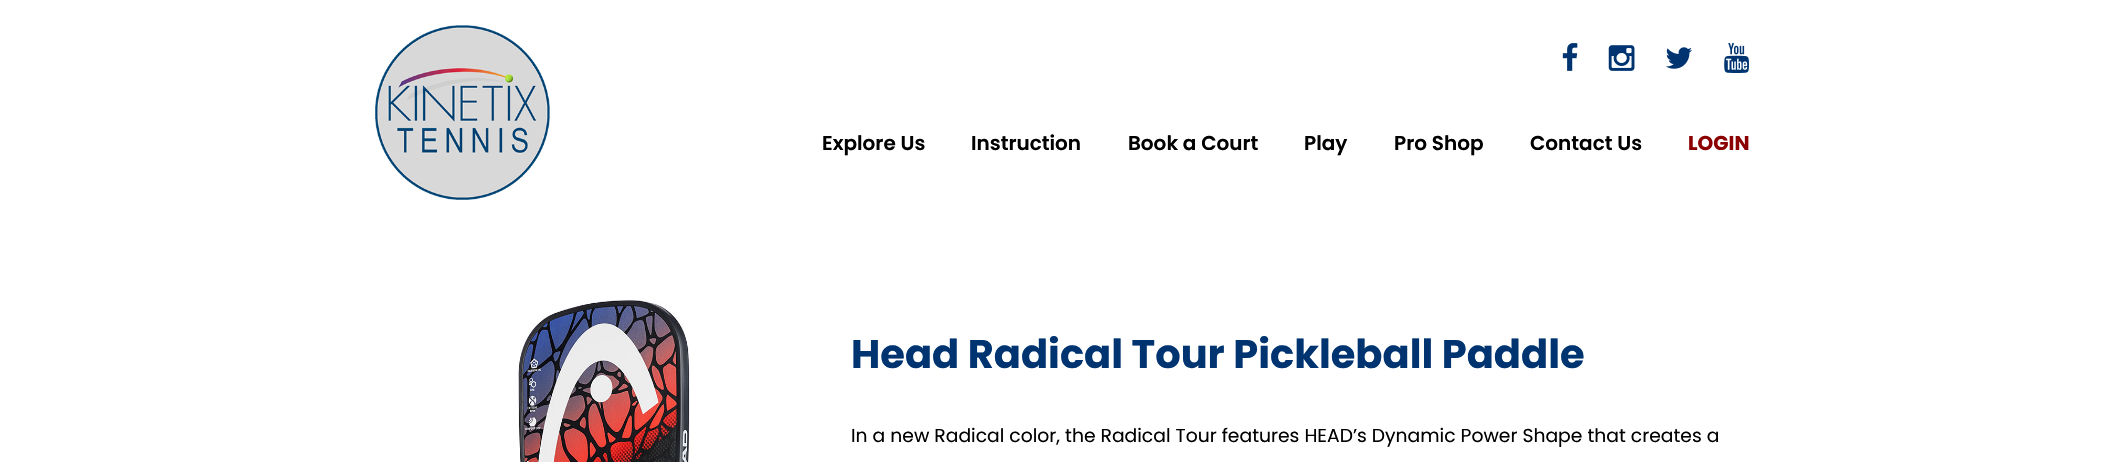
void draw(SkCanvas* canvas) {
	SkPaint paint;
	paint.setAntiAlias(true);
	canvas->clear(0xffffffff);
	canvas->drawImageRect(SkImages::DeferredFromEncodedData(SkData::MakeFromFileName("img1.png")), SkRect::MakeXYWH(375, 25, 175, 175), SkSamplingOptions());
	canvas->drawImageRect(SkImages::DeferredFromEncodedData(SkData::MakeFromFileName("img2.png")), SkRect::MakeXYWH(1562, 43, 16, 28), SkSamplingOptions());
	canvas->drawImageRect(SkImages::DeferredFromEncodedData(SkData::MakeFromFileName("img3.png")), SkRect::MakeXYWH(1608, 45, 27, 26), SkSamplingOptions());
	canvas->drawImageRect(SkImages::DeferredFromEncodedData(SkData::MakeFromFileName("img4.png")), SkRect::MakeXYWH(1666, 47, 26, 22), SkSamplingOptions());
	canvas->drawImageRect(SkImages::DeferredFromEncodedData(SkData::MakeFromFileName("img5.png")), SkRect::MakeXYWH(1724, 43, 25, 30), SkSamplingOptions());
	SkFont f1(fontMgr->matchFamilyStyle("Poppins", SkFontStyle(600, SkFontStyle::kNormal_Width, SkFontStyle::kUpright_Slant)), 20);
	f1.setSubpixel(true);
	paint.setColor(0xff000000);
	canvas->drawString("Explore Us", 822, 150, f1, paint);
	canvas->drawString("Instruction", 971, 150, f1, paint);
	canvas->drawString("Book a Court", 1128, 150, f1, paint);
	canvas->drawString("Play", 1304, 150, f1, paint);
	canvas->drawString("Pro Shop", 1394, 150, f1, paint);
	canvas->drawString("Contact Us", 1530, 150, f1, paint);
	SkFont f2(fontMgr->matchFamilyStyle("Poppins", SkFontStyle::Bold()), 20);
	f2.setSubpixel(true);
	paint.setColor(0xff8b0000);
	canvas->drawString("LOGIN", 1688, 150, f2, paint);
	canvas->drawImageRect(SkImages::DeferredFromEncodedData(SkData::MakeFromFileName("img6.png")), SkRect::MakeXYWH(518, 300, 173, 162), SkSamplingOptions());
	SkFont f3(fontMgr->matchFamilyStyle("Poppins", SkFontStyle::Bold()), 40);
	f3.setSubpixel(true);
	paint.setColor(0xff003471);
	canvas->drawString("Head Radical Tour Pickleball Paddle", 851, 368, f3, paint);
	SkFont f4(fontMgr->matchFamilyStyle("Poppins", SkFontStyle::Normal()), 18.75);
	f4.setSubpixel(true);
	paint.setColor(0xff000000);
	canvas->drawString("In a new Radical color, the Radical Tour features HEAD’s Dynamic Power Shape that creates a", 851, 442, f4, paint);
}
